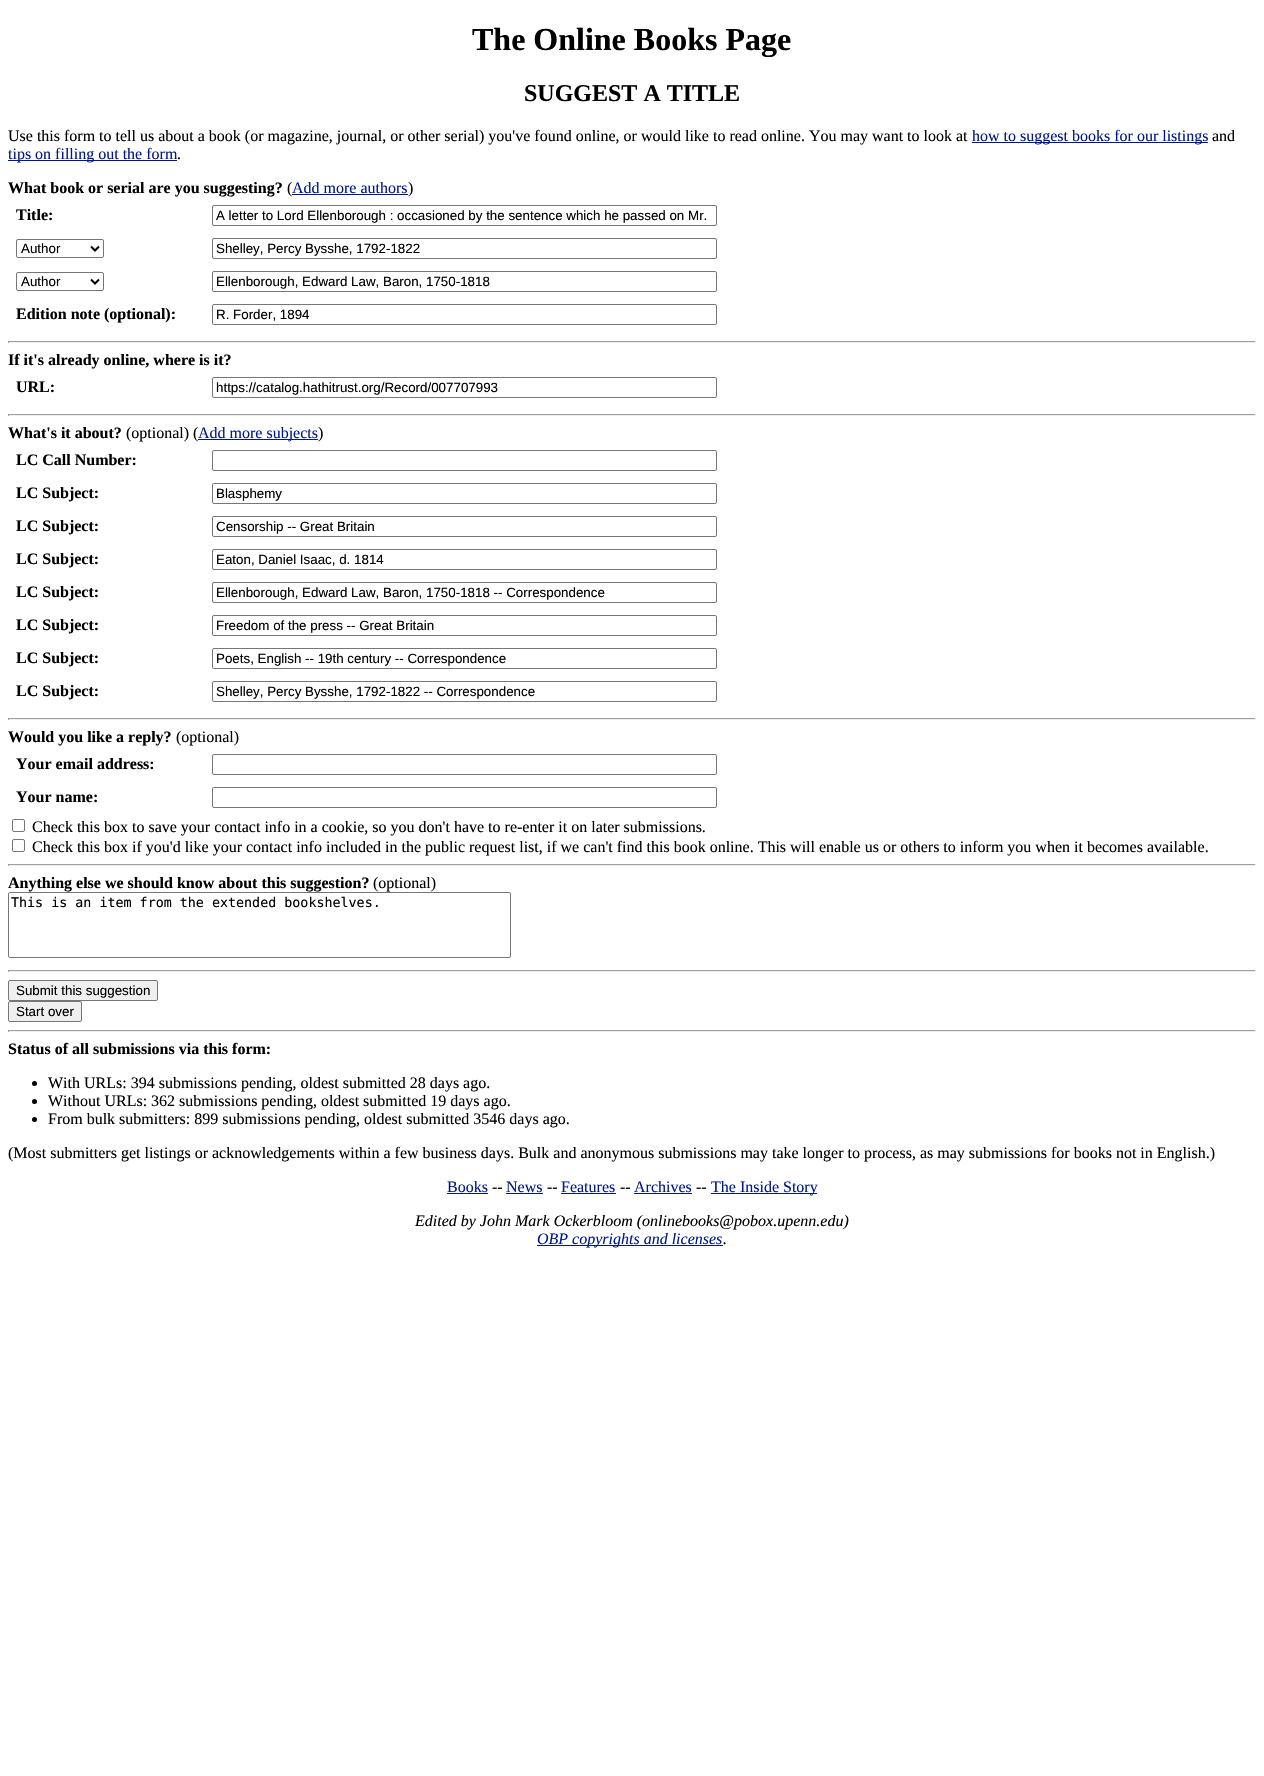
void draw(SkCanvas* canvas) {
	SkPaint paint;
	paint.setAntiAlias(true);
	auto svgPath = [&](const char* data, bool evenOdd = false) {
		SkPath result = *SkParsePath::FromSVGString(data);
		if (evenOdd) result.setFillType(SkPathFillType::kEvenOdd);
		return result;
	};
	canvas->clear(0xffffffff);
	SkFont f1(fontMgr->matchFamilyStyle("Liberation Serif", SkFontStyle::Bold()), 32);
	f1.setSubpixel(true);
	paint.setColor(0xff000000);
	canvas->drawString("The Online Books Page", 472, 50, f1, paint);
	SkFont f2(fontMgr->matchFamilyStyle("Liberation Serif", SkFontStyle::Bold()), 24);
	f2.setSubpixel(true);
	canvas->drawString("SUGGEST A TITLE", 524, 101, f2, paint);
	SkFont f3(fontMgr->matchFamilyStyle("Liberation Serif", SkFontStyle::Normal()), 16);
	f3.setSubpixel(true);
	canvas->drawString("Use this form to tell us about a book (or magazine, journal, or other serial) you've found online, or would like to read online. You may want to look at", 8, 141, f3, paint);
	paint.setColor(0xff00188c);
	canvas->drawRect(SkRect::MakeXYWH(972, 142, 236, 1), paint);
	canvas->drawString("how to suggest books for our listings", 972, 141, f3, paint);
	paint.setColor(0xff000000);
	canvas->drawString("and", 1212, 141, f3, paint);
	paint.setColor(0xff00188c);
	canvas->drawRect(SkRect::MakeXYWH(8, 160, 169, 1), paint);
	canvas->drawString("tips on filling out the form", 8, 159, f3, paint);
	paint.setColor(0xff000000);
	canvas->drawString(".", 177, 159, f3, paint);
	SkFont f4(fontMgr->matchFamilyStyle("Liberation Serif", SkFontStyle::Bold()), 16);
	f4.setSubpixel(true);
	canvas->drawString("What book or serial are you suggesting?", 8, 193, f4, paint);
	canvas->drawString("(", 287, 193, f3, paint);
	paint.setColor(0xff00188c);
	canvas->drawString("Add more authors", 292, 193, f3, paint);
	canvas->drawRect(SkRect::MakeXYWH(292, 194, 116, 1), paint);
	paint.setColor(0xff000000);
	canvas->drawString(")", 408, 193, f3, paint);
	canvas->drawString("Title:", 16, 220, f4, paint);
	paint.setStroke(true);
	paint.setStrokeWidth(1);
	paint.setColor(0xff767676);
	canvas->drawRoundRect(SkRect::MakeXYWH(212.5, 205.5, 504, 20), 1.5, 1.5, paint);
	SkFont f5(fontMgr->matchFamilyStyle("Liberation Sans", SkFontStyle::Normal()), 13.35);
	f5.setSubpixel(true);
	paint.setStroke(false);
	paint.setColor(0xff000000);
	canvas->drawString("A letter to Lord Ellenborough : occasioned by the sentence which he passed on Mr.", 216, 220, f5, paint);
	paint.setStroke(true);
	paint.setColor(0xff767676);
	canvas->drawRoundRect(SkRect::MakeXYWH(16.5, 239.5, 87, 18), 1.5, 1.5, paint);
	paint.setStrokeWidth(2);
	paint.setColor(0xff000000);
	canvas->drawPath(svgPath("M91 246.5L95 250.5L99 246.5"), paint);
	paint.setStroke(false);
	canvas->drawString("Author", 21, 253, f5, paint);
	paint.setStroke(true);
	paint.setStrokeWidth(1);
	paint.setColor(0xff767676);
	canvas->drawRoundRect(SkRect::MakeXYWH(212.5, 238.5, 504, 20), 1.5, 1.5, paint);
	paint.setStroke(false);
	paint.setColor(0xff000000);
	canvas->drawString("Shelley, Percy Bysshe, 1792-1822", 216, 253, f5, paint);
	paint.setStroke(true);
	paint.setColor(0xff767676);
	canvas->drawRoundRect(SkRect::MakeXYWH(16.5, 272.5, 87, 18), 1.5, 1.5, paint);
	paint.setStrokeWidth(2);
	paint.setColor(0xff000000);
	canvas->drawPath(svgPath("M91 279.5L95 283.5L99 279.5"), paint);
	paint.setStroke(false);
	canvas->drawString("Author", 21, 286, f5, paint);
	paint.setStroke(true);
	paint.setStrokeWidth(1);
	paint.setColor(0xff767676);
	canvas->drawRoundRect(SkRect::MakeXYWH(212.5, 271.5, 504, 20), 1.5, 1.5, paint);
	paint.setStroke(false);
	paint.setColor(0xff000000);
	canvas->drawString("Ellenborough, Edward Law, Baron, 1750-1818", 216, 286, f5, paint);
	canvas->drawString("Edition note (optional):", 16, 319, f4, paint);
	paint.setStroke(true);
	paint.setColor(0xff767676);
	canvas->drawRoundRect(SkRect::MakeXYWH(212.5, 304.5, 504, 20), 1.5, 1.5, paint);
	paint.setStroke(false);
	paint.setColor(0xff000000);
	canvas->drawString("R. Forder, 1894", 216, 319, f5, paint);
	paint.setColor(0xff9f9f9f);
	canvas->drawRect(SkRect::MakeXYWH(8, 341, 1248, 1), paint);
	paint.setColor(0xffeeeeee);
	canvas->drawRect(SkRect::MakeXYWH(1255, 341, 1, 2), paint);
	canvas->drawRect(SkRect::MakeXYWH(8, 342, 1248, 1), paint);
	paint.setColor(0xff9f9f9f);
	canvas->drawRect(SkRect::MakeXYWH(8, 341, 1, 2), paint);
	paint.setColor(0xff000000);
	canvas->drawString("If it's already online, where is it?", 8, 365, f4, paint);
	canvas->drawString("URL:", 16, 392, f4, paint);
	paint.setStroke(true);
	paint.setColor(0xff767676);
	canvas->drawRoundRect(SkRect::MakeXYWH(212.5, 377.5, 504, 20), 1.5, 1.5, paint);
	paint.setStroke(false);
	paint.setColor(0xff000000);
	canvas->drawString("https://catalog.hathitrust.org/Record/007707993", 216, 392, f5, paint);
	paint.setColor(0xff9f9f9f);
	canvas->drawRect(SkRect::MakeXYWH(8, 414, 1248, 1), paint);
	paint.setColor(0xffeeeeee);
	canvas->drawRect(SkRect::MakeXYWH(1255, 414, 1, 2), paint);
	canvas->drawRect(SkRect::MakeXYWH(8, 415, 1248, 1), paint);
	paint.setColor(0xff9f9f9f);
	canvas->drawRect(SkRect::MakeXYWH(8, 414, 1, 2), paint);
	paint.setColor(0xff000000);
	canvas->drawString("What's it about?", 8, 438, f4, paint);
	canvas->drawString("(optional) (", 126, 438, f3, paint);
	paint.setColor(0xff00188c);
	canvas->drawRect(SkRect::MakeXYWH(198, 439, 120, 1), paint);
	canvas->drawString("Add more subjects", 198, 438, f3, paint);
	paint.setColor(0xff000000);
	canvas->drawString(")", 318, 438, f3, paint);
	canvas->drawString("LC Call Number:", 16, 465, f4, paint);
	paint.setStroke(true);
	paint.setColor(0xff767676);
	canvas->drawRoundRect(SkRect::MakeXYWH(212.5, 450.5, 504, 20), 1.5, 1.5, paint);
	paint.setStroke(false);
	paint.setColor(0xff000000);
	canvas->drawString("LC Subject:", 16, 498, f4, paint);
	paint.setStroke(true);
	paint.setColor(0xff767676);
	canvas->drawRoundRect(SkRect::MakeXYWH(212.5, 483.5, 504, 20), 1.5, 1.5, paint);
	paint.setStroke(false);
	paint.setColor(0xff000000);
	canvas->drawString("Blasphemy", 216, 498, f5, paint);
	canvas->drawString("LC Subject:", 16, 531, f4, paint);
	paint.setStroke(true);
	paint.setColor(0xff767676);
	canvas->drawRoundRect(SkRect::MakeXYWH(212.5, 516.5, 504, 20), 1.5, 1.5, paint);
	paint.setStroke(false);
	paint.setColor(0xff000000);
	canvas->drawString("Censorship -- Great Britain", 216, 531, f5, paint);
	canvas->drawString("LC Subject:", 16, 564, f4, paint);
	paint.setStroke(true);
	paint.setColor(0xff767676);
	canvas->drawRoundRect(SkRect::MakeXYWH(212.5, 549.5, 504, 20), 1.5, 1.5, paint);
	paint.setStroke(false);
	paint.setColor(0xff000000);
	canvas->drawString("Eaton, Daniel Isaac, d. 1814", 216, 564, f5, paint);
	canvas->drawString("LC Subject:", 16, 597, f4, paint);
	paint.setStroke(true);
	paint.setColor(0xff767676);
	canvas->drawRoundRect(SkRect::MakeXYWH(212.5, 582.5, 504, 20), 1.5, 1.5, paint);
	paint.setStroke(false);
	paint.setColor(0xff000000);
	canvas->drawString("Ellenborough, Edward Law, Baron, 1750-1818 -- Correspondence", 216, 597, f5, paint);
	canvas->drawString("LC Subject:", 16, 630, f4, paint);
	paint.setStroke(true);
	paint.setColor(0xff767676);
	canvas->drawRoundRect(SkRect::MakeXYWH(212.5, 615.5, 504, 20), 1.5, 1.5, paint);
	paint.setStroke(false);
	paint.setColor(0xff000000);
	canvas->drawString("Freedom of the press -- Great Britain", 216, 630, f5, paint);
	canvas->drawString("LC Subject:", 16, 663, f4, paint);
	paint.setStroke(true);
	paint.setColor(0xff767676);
	canvas->drawRoundRect(SkRect::MakeXYWH(212.5, 648.5, 504, 20), 1.5, 1.5, paint);
	paint.setStroke(false);
	paint.setColor(0xff000000);
	canvas->drawString("Poets, English -- 19th century -- Correspondence", 216, 663, f5, paint);
	canvas->drawString("LC Subject:", 16, 696, f4, paint);
	paint.setStroke(true);
	paint.setColor(0xff767676);
	canvas->drawRoundRect(SkRect::MakeXYWH(212.5, 681.5, 504, 20), 1.5, 1.5, paint);
	paint.setStroke(false);
	paint.setColor(0xff000000);
	canvas->drawString("Shelley, Percy Bysshe, 1792-1822 -- Correspondence", 216, 696, f5, paint);
	paint.setColor(0xff9f9f9f);
	canvas->drawRect(SkRect::MakeXYWH(8, 718, 1248, 1), paint);
	paint.setColor(0xffeeeeee);
	canvas->drawRect(SkRect::MakeXYWH(1255, 718, 1, 2), paint);
	canvas->drawRect(SkRect::MakeXYWH(8, 719, 1248, 1), paint);
	paint.setColor(0xff9f9f9f);
	canvas->drawRect(SkRect::MakeXYWH(8, 718, 1, 2), paint);
	paint.setColor(0xff000000);
	canvas->drawString("Would you like a reply?", 8, 742, f4, paint);
	canvas->drawString("(optional)", 176, 742, f3, paint);
	canvas->drawString("Your email address:", 16, 769, f4, paint);
	paint.setStroke(true);
	paint.setColor(0xff767676);
	canvas->drawRoundRect(SkRect::MakeXYWH(212.5, 754.5, 504, 20), 1.5, 1.5, paint);
	paint.setStroke(false);
	paint.setColor(0xff000000);
	canvas->drawString("Your name:", 16, 802, f4, paint);
	paint.setStroke(true);
	paint.setColor(0xff767676);
	canvas->drawRoundRect(SkRect::MakeXYWH(212.5, 787.5, 504, 20), 1.5, 1.5, paint);
	canvas->drawRoundRect(SkRect::MakeXYWH(12.5, 819.5, 12, 12), 1.5, 1.5, paint);
	paint.setStroke(false);
	paint.setColor(0xff000000);
	canvas->drawString("Check this box to save your contact info in a cookie, so you don't have to re-enter it on later submissions.", 32, 832, f3, paint);
	paint.setStroke(true);
	paint.setColor(0xff767676);
	canvas->drawRoundRect(SkRect::MakeXYWH(12.5, 839.5, 12, 12), 1.5, 1.5, paint);
	paint.setStroke(false);
	paint.setColor(0xff000000);
	canvas->drawString("Check this box if you'd like your contact info included in the public request list, if we can't find this book online. This will enable us or others to inform you when it becomes available.", 32, 852, f3, paint);
	paint.setColor(0xff9f9f9f);
	canvas->drawRect(SkRect::MakeXYWH(8, 864, 1248, 1), paint);
	paint.setColor(0xffeeeeee);
	canvas->drawRect(SkRect::MakeXYWH(1255, 864, 1, 2), paint);
	canvas->drawRect(SkRect::MakeXYWH(8, 865, 1248, 1), paint);
	paint.setColor(0xff9f9f9f);
	canvas->drawRect(SkRect::MakeXYWH(8, 864, 1, 2), paint);
	paint.setColor(0xff000000);
	canvas->drawString("Anything else we should know about this suggestion?", 8, 888, f4, paint);
	canvas->drawString("(optional)", 373, 888, f3, paint);
	paint.setStroke(true);
	paint.setColor(0xff767676);
	canvas->drawRoundRect(SkRect::MakeXYWH(8.5, 892.5, 502, 65), 1.5, 1.5, paint);
	SkFont f6(fontMgr->matchFamilyStyle("DejaVu Sans Mono", SkFontStyle::Normal()), 13.35);
	f6.setSubpixel(true);
	paint.setStroke(false);
	paint.setColor(0xff000000);
	canvas->drawString("This is an item from the extended bookshelves.", 11, 907, f6, paint);
	paint.setColor(0xff9f9f9f);
	canvas->drawRect(SkRect::MakeXYWH(8, 970, 1248, 1), paint);
	paint.setColor(0xffeeeeee);
	canvas->drawRect(SkRect::MakeXYWH(1255, 970, 1, 2), paint);
	canvas->drawRect(SkRect::MakeXYWH(8, 971, 1248, 1), paint);
	paint.setColor(0xff9f9f9f);
	canvas->drawRect(SkRect::MakeXYWH(8, 970, 1, 2), paint);
	paint.setColor(0xffefefef);
	canvas->drawRoundRect(SkRect::MakeXYWH(8.5, 980.5, 149, 20), 1.5, 1.5, paint);
	paint.setStroke(true);
	paint.setColor(0xff767676);
	canvas->drawRoundRect(SkRect::MakeXYWH(8.5, 980.5, 149, 20), 1.5, 1.5, paint);
	paint.setStroke(false);
	paint.setColor(0xff000000);
	canvas->drawString("Submit this suggestion", 16, 995, f5, paint);
	paint.setColor(0xffefefef);
	canvas->drawRoundRect(SkRect::MakeXYWH(8.5, 1001.5, 73, 20), 1.5, 1.5, paint);
	paint.setStroke(true);
	paint.setColor(0xff767676);
	canvas->drawRoundRect(SkRect::MakeXYWH(8.5, 1001.5, 73, 20), 1.5, 1.5, paint);
	paint.setStroke(false);
	paint.setColor(0xff000000);
	canvas->drawString("Start over", 16, 1016, f5, paint);
	paint.setColor(0xff9f9f9f);
	canvas->drawRect(SkRect::MakeXYWH(8, 1030, 1248, 1), paint);
	paint.setColor(0xffeeeeee);
	canvas->drawRect(SkRect::MakeXYWH(1255, 1030, 1, 2), paint);
	canvas->drawRect(SkRect::MakeXYWH(8, 1031, 1248, 1), paint);
	paint.setColor(0xff9f9f9f);
	canvas->drawRect(SkRect::MakeXYWH(8, 1030, 1, 2), paint);
	paint.setColor(0xff000000);
	canvas->drawString("Status of all submissions via this form:", 8, 1054, f4, paint);
	canvas->drawCircle(34.5, 1083.5, 2.5, paint);
	canvas->drawString("With URLs: 394 submissions pending, oldest submitted 28 days ago.", 48, 1088, f3, paint);
	canvas->drawCircle(34.5, 1101.5, 2.5, paint);
	canvas->drawString("Without URLs: 362 submissions pending, oldest submitted 19 days ago.", 48, 1106, f3, paint);
	canvas->drawCircle(34.5, 1119.5, 2.5, paint);
	canvas->drawString("From bulk submitters: 899 submissions pending, oldest submitted 3546 days ago.", 48, 1124, f3, paint);
	canvas->drawString("(Most submitters get listings or acknowledgements within a few business days. Bulk and anonymous submissions may take longer to process, as may submissions for books not in English.)", 8, 1158, f3, paint);
	paint.setColor(0xff00188c);
	canvas->drawString("Books", 447, 1192, f3, paint);
	canvas->drawRect(SkRect::MakeXYWH(447, 1193, 41, 1), paint);
	paint.setColor(0xff000000);
	canvas->drawString("--", 492, 1192, f3, paint);
	paint.setColor(0xff00188c);
	canvas->drawString("News", 506, 1192, f3, paint);
	canvas->drawRect(SkRect::MakeXYWH(506, 1193, 37, 1), paint);
	paint.setColor(0xff000000);
	canvas->drawString("--", 547, 1192, f3, paint);
	paint.setColor(0xff00188c);
	canvas->drawString("Features", 561, 1192, f3, paint);
	canvas->drawRect(SkRect::MakeXYWH(561, 1193, 55, 1), paint);
	paint.setColor(0xff000000);
	canvas->drawString("--", 620, 1192, f3, paint);
	paint.setColor(0xff00188c);
	canvas->drawString("Archives", 634, 1192, f3, paint);
	canvas->drawRect(SkRect::MakeXYWH(634, 1193, 58, 1), paint);
	paint.setColor(0xff000000);
	canvas->drawString("--", 696, 1192, f3, paint);
	paint.setColor(0xff00188c);
	canvas->drawRect(SkRect::MakeXYWH(711, 1193, 106, 1), paint);
	canvas->drawString("The Inside Story", 711, 1192, f3, paint);
	SkFont f7(fontMgr->matchFamilyStyle("Liberation Serif", SkFontStyle::Italic()), 16);
	f7.setSubpixel(true);
	paint.setColor(0xff000000);
	canvas->drawString("Edited by John Mark Ockerbloom (onlinebooks@pobox.upenn.edu)", 415, 1226, f7, paint);
	paint.setColor(0xff00188c);
	canvas->drawRect(SkRect::MakeXYWH(537, 1245, 186, 1), paint);
	canvas->drawString("OBP copyrights and licenses", 537, 1244, f7, paint);
	paint.setColor(0xff000000);
	canvas->drawString(".", 723, 1244, f7, paint);
}
